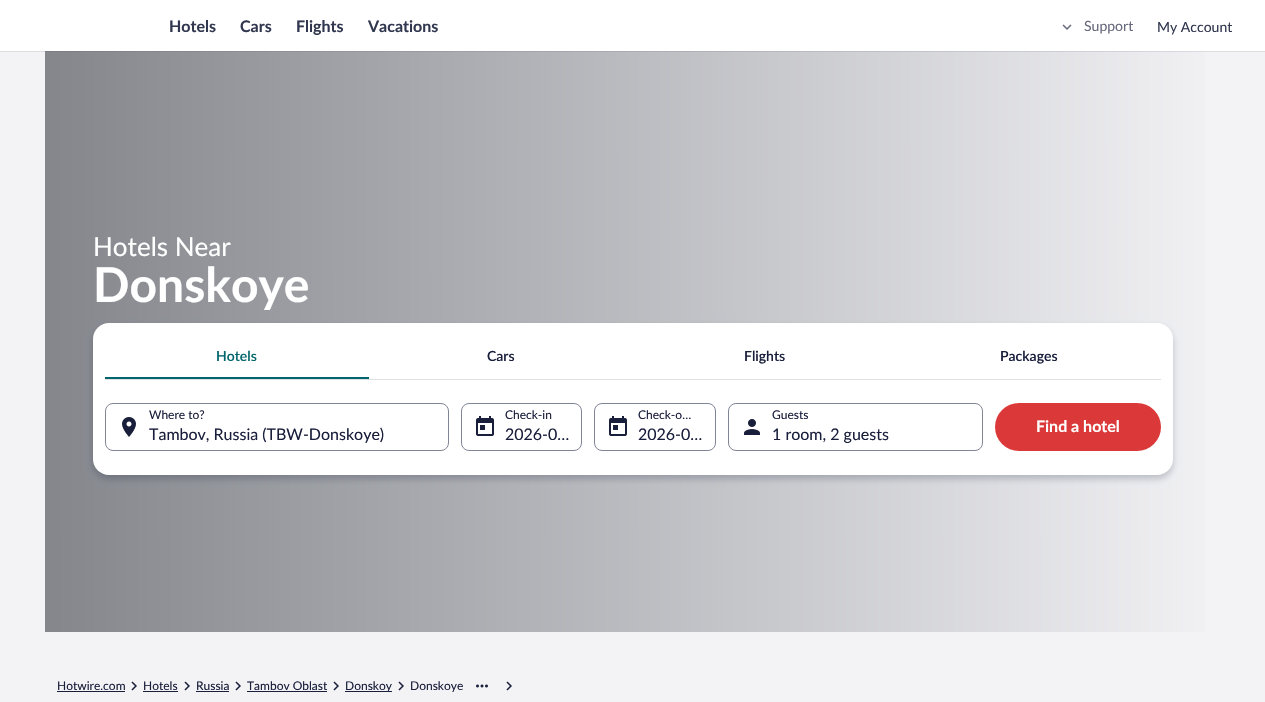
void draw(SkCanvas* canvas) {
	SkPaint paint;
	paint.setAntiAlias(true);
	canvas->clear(0xfff3f3f5);
	paint.setColor(0xffdcdce1);
	canvas->drawRect(SkRect::MakeXYWH(0, 51, 1265, 1), paint);
	paint.setColor(0xffffffff);
	canvas->drawRect(SkRect::MakeXYWH(0, 0, 1265, 51), paint);
	SkFont f1(fontMgr->matchFamilyStyle("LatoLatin", SkFontStyle::Bold()), 16);
	f1.setSubpixel(true);
	paint.setColor(0xff31374f);
	canvas->drawString("Hotels", 169, 32, f1, paint);
	canvas->drawString("Cars", 240, 32, f1, paint);
	canvas->drawString("Flights", 296, 32, f1, paint);
	canvas->drawString("Vacations", 368, 32, f1, paint);
	canvas->drawImageRect(SkImages::DeferredFromEncodedData(SkData::MakeFromFileName("img1.png")), SkRect::MakeXYWH(1062, 24, 10, 6), SkSamplingOptions());
	SkFont f2(fontMgr->matchFamilyStyle("LatoLatin", SkFontStyle::Normal()), 14);
	f2.setSubpixel(true);
	paint.setColor(0xff676a7d);
	canvas->drawString("Support", 1084, 31, f2, paint);
	paint.setColor(0xff31374f);
	canvas->drawString("My Account", 1157, 32, f2, paint);
	{
		const SkColor colors[] = {0xfff2f2f5, 0xff84868c};
		const float stops[] = {0, 1};
		const SkPoint ends[] = {{1221, 341}, {45, 342}};
		paint.setShader(SkGradientShader::MakeLinear(ends, colors, stops, 2, SkTileMode::kClamp));
		paint.setAlpha(255);
	}
	canvas->drawRect(SkRect::MakeXYWH(45, 52, 1160, 580), paint);
	{
		const SkColor colors[] = {0xffdbdce1, 0xff7a7d85};
		const float stops[] = {0, 1};
		const SkPoint ends[] = {{1221, 341}, {45, 342}};
		paint.setShader(SkGradientShader::MakeLinear(ends, colors, stops, 2, SkTileMode::kClamp));
		paint.setAlpha(255);
	}
	canvas->drawRect(SkRect::MakeXYWH(45, 51, 1158, 1), paint);
	SkFont f3(fontMgr->matchFamilyStyle("LatoLatin", SkFontStyle::Normal()), 26);
	f3.setSubpixel(true);
	paint.setShader(nullptr);
	paint.setColor(0xffffffff);
	canvas->drawString("Hotels Near", 93, 256, f3, paint);
	SkFont f4(fontMgr->matchFamilyStyle("LatoLatin", SkFontStyle::Bold()), 48);
	f4.setSubpixel(true);
	canvas->drawString("Donskoye", 93, 302, f4, paint);
	paint.setColor(0x33000b26);
	paint.setMaskFilter(SkMaskFilter::MakeBlur(kNormal_SkBlurStyle, 3.5));
	canvas->drawRoundRect(SkRect::MakeXYWH(93, 327, 1080, 152), 16, 16, paint);
	paint.setMaskFilter(nullptr);
	paint.setColor(0xffffffff);
	canvas->drawRoundRect(SkRect::MakeXYWH(93, 323, 1080, 152), 16, 16, paint);
	paint.setColor(0xffdfe0e4);
	canvas->drawRect(SkRect::MakeXYWH(105, 379, 1056, 1), paint);
	paint.setColor(0xff00656c);
	canvas->drawRect(SkRect::MakeXYWH(105, 377, 264, 2), paint);
	SkFont f5(fontMgr->matchFamilyStyle("LatoLatin", SkFontStyle(600, SkFontStyle::kNormal_Width, SkFontStyle::kUpright_Slant)), 14);
	f5.setSubpixel(true);
	canvas->drawString("Hotels", 216, 361, f5, paint);
	paint.setColor(0xff191e3b);
	canvas->drawString("Cars", 487, 361, f5, paint);
	canvas->drawString("Flights", 744, 361, f5, paint);
	canvas->drawString("Packages", 1000, 361, f5, paint);
	paint.setStroke(true);
	paint.setStrokeWidth(1);
	paint.setColor(0xff818494);
	canvas->drawRoundRect(SkRect::MakeXYWH(105.5, 403.5, 343, 47), 7.5, 7.5, paint);
	SkFont f6(fontMgr->matchFamilyStyle("LatoLatin", SkFontStyle::Normal()), 12);
	f6.setSubpixel(true);
	paint.setStroke(false);
	paint.setColor(0xff191e3b);
	canvas->drawString("Where to?", 149, 419, f6, paint);
	canvas->drawImageRect(SkImages::DeferredFromEncodedData(SkData::MakeFromFileName("img2.png")), SkRect::MakeXYWH(122, 417, 14, 20), SkSamplingOptions());
	SkFont f7(fontMgr->matchFamilyStyle("LatoLatin", SkFontStyle::Normal()), 16);
	f7.setSubpixel(true);
	canvas->drawString("Tambov, Russia (TBW-Donskoye)", 149, 440, f7, paint);
	paint.setStroke(true);
	paint.setColor(0xff818494);
	canvas->drawRoundRect(SkRect::MakeXYWH(461.5, 403.5, 120, 47), 7.5, 7.5, paint);
	paint.setStroke(false);
	paint.setColor(0xff191e3b);
	canvas->drawString("Check-in", 505, 419, f6, paint);
	canvas->drawImageRect(SkImages::DeferredFromEncodedData(SkData::MakeFromFileName("img3.png")), SkRect::MakeXYWH(476, 416, 18, 20), SkSamplingOptions());
	canvas->drawString("2026-0…", 505, 440, f7, paint);
	paint.setStroke(true);
	paint.setColor(0xff818494);
	canvas->drawRoundRect(SkRect::MakeXYWH(594.5, 403.5, 121, 47), 7.5, 7.5, paint);
	paint.setStroke(false);
	paint.setColor(0xff191e3b);
	canvas->drawString("Check-o…", 638, 419, f6, paint);
	canvas->drawImageRect(SkImages::DeferredFromEncodedData(SkData::MakeFromFileName("img3.png")), SkRect::MakeXYWH(609, 416, 18, 20), SkSamplingOptions());
	canvas->drawString("2026-0…", 638, 440, f7, paint);
	paint.setStroke(true);
	paint.setColor(0xff818494);
	canvas->drawRoundRect(SkRect::MakeXYWH(728.5, 403.5, 254, 47), 7.5, 7.5, paint);
	paint.setStroke(false);
	paint.setColor(0xff191e3b);
	canvas->drawString("Guests", 772, 419, f6, paint);
	canvas->drawImageRect(SkImages::DeferredFromEncodedData(SkData::MakeFromFileName("img4.png")), SkRect::MakeXYWH(744, 419, 16, 16), SkSamplingOptions());
	canvas->drawString("1 room, 2 guests", 772, 440, f7, paint);
	paint.setColor(0xffdb3939);
	canvas->drawRoundRect(SkRect::MakeXYWH(995, 403, 166, 48), 24, 24, paint);
	paint.setColor(0xffffffff);
	canvas->drawString("Find a hotel", 1036, 432, f1, paint);
	paint.setColor(0xff191e3b);
	canvas->drawString("Hotwire.com", 57, 690, f6, paint);
	canvas->drawRect(SkRect::MakeXYWH(57, 691, 68, 1), paint);
	canvas->drawImageRect(SkImages::DeferredFromEncodedData(SkData::MakeFromFileName("img5.png")), SkRect::MakeXYWH(131, 681, 6, 10), SkSamplingOptions());
	canvas->drawString("Hotels", 143, 690, f6, paint);
	canvas->drawRect(SkRect::MakeXYWH(143, 691, 35, 1), paint);
	canvas->drawImageRect(SkImages::DeferredFromEncodedData(SkData::MakeFromFileName("img5.png")), SkRect::MakeXYWH(184, 681, 6, 10), SkSamplingOptions());
	canvas->drawString("Russia", 196, 690, f6, paint);
	canvas->drawRect(SkRect::MakeXYWH(196, 691, 33, 1), paint);
	canvas->drawImageRect(SkImages::DeferredFromEncodedData(SkData::MakeFromFileName("img5.png")), SkRect::MakeXYWH(235, 681, 6, 10), SkSamplingOptions());
	canvas->drawString("Tambov Oblast", 247, 690, f6, paint);
	canvas->drawRect(SkRect::MakeXYWH(247, 691, 80, 1), paint);
	canvas->drawImageRect(SkImages::DeferredFromEncodedData(SkData::MakeFromFileName("img5.png")), SkRect::MakeXYWH(333, 681, 6, 10), SkSamplingOptions());
	canvas->drawRect(SkRect::MakeXYWH(345, 691, 47, 1), paint);
	canvas->drawString("Donskoy", 345, 690, f6, paint);
	canvas->drawImageRect(SkImages::DeferredFromEncodedData(SkData::MakeFromFileName("img5.png")), SkRect::MakeXYWH(398, 681, 6, 10), SkSamplingOptions());
	canvas->drawString("Donskoye", 410, 690, f6, paint);
	canvas->drawImageRect(SkImages::DeferredFromEncodedData(SkData::MakeFromFileName("img6.png")), SkRect::MakeXYWH(476, 684, 12, 4), SkSamplingOptions());
	canvas->drawImageRect(SkImages::DeferredFromEncodedData(SkData::MakeFromFileName("img5.png")), SkRect::MakeXYWH(506, 681, 6, 10), SkSamplingOptions());
}
